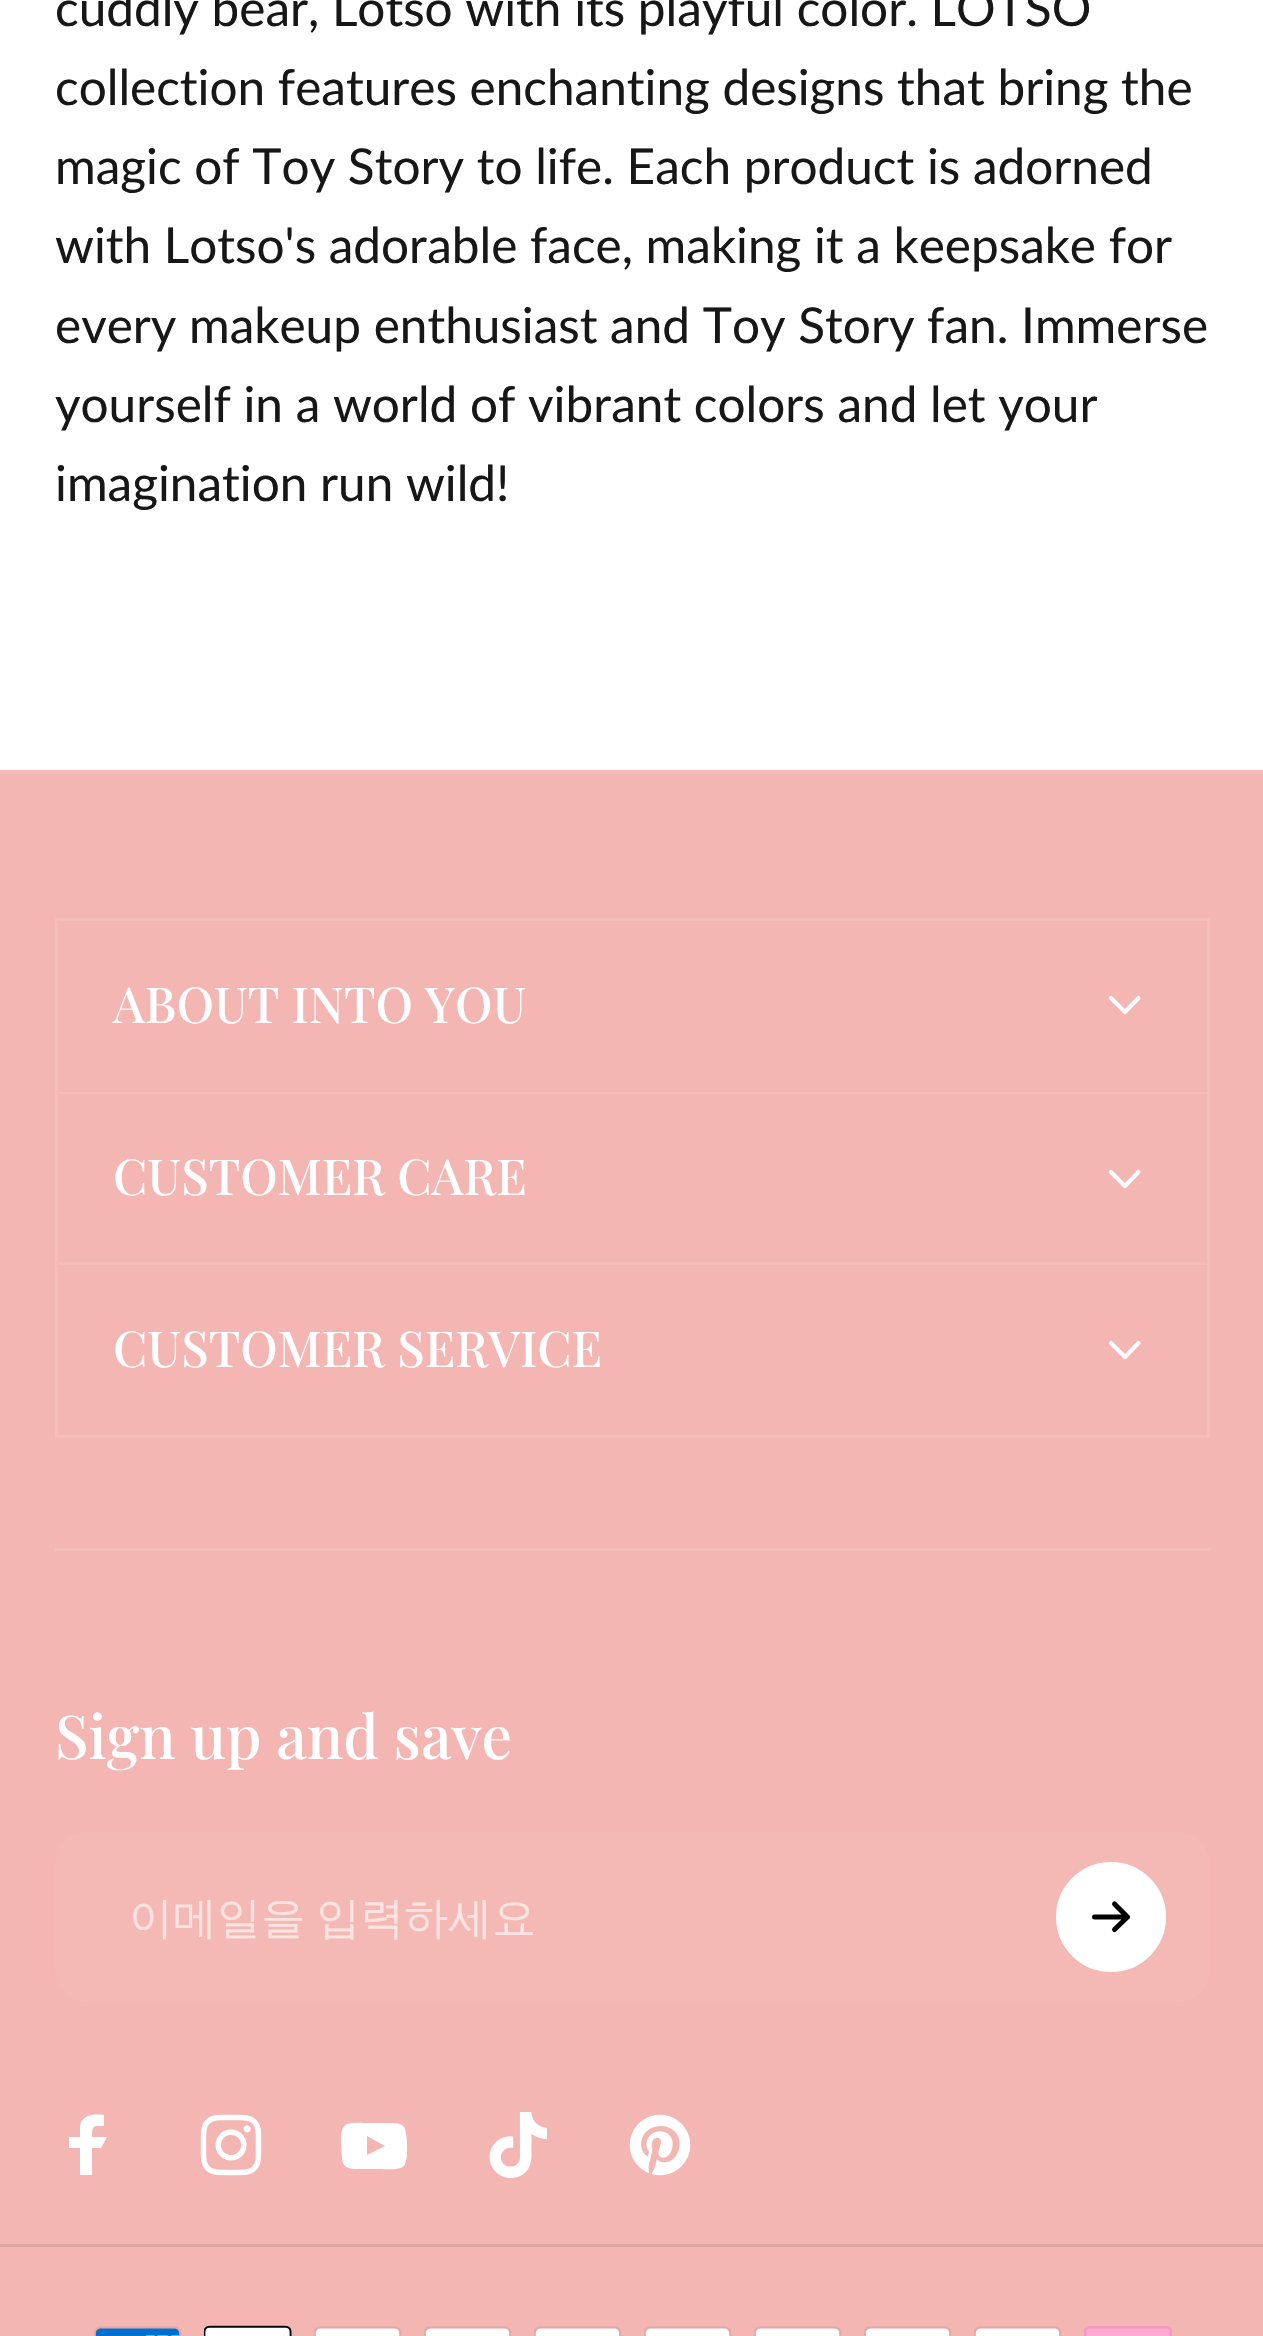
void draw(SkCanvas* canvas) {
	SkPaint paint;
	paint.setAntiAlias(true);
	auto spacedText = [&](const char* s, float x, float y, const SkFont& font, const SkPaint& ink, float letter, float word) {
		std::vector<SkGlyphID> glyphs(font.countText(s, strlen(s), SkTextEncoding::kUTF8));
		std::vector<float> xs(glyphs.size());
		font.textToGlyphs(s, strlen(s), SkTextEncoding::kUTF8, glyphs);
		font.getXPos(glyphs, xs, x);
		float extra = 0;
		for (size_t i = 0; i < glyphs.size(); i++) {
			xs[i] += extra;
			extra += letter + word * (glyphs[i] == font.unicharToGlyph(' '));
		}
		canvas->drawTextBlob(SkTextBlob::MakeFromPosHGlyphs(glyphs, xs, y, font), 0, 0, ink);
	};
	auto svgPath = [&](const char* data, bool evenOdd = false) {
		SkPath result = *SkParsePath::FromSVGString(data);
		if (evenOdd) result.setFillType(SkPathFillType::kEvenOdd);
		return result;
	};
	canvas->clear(0xffffffff);
	SkFont f1(fontMgr->matchFamilyStyle("Lato", SkFontStyle::Normal()), 49.5);
	f1.setSubpixel(true);
	paint.setColor(0xff171717);
	canvas->drawString("cuddly bear, Lotso with its playful color. LOTSO", 55, 26, f1, paint);
	canvas->drawString("collection features enchanting designs that bring the", 55, 105, f1, paint);
	canvas->drawString("magic of Toy Story to life. Each product is adorned", 55, 184, f1, paint);
	canvas->drawString("with Lotso's adorable face, making it a keepsake for", 55, 263, f1, paint);
	canvas->drawString("every makeup enthusiast and Toy Story fan. Immerse", 55, 343, f1, paint);
	canvas->drawString("yourself in a world of vibrant colors and let your", 55, 422, f1, paint);
	canvas->drawString("imagination run wild!", 55, 501, f1, paint);
	paint.setColor(0xfff4b6b2);
	canvas->drawRect(SkRect::MakeXYWH(0, 773, 1263, 1471), paint);
	paint.setColor(0xfff5bdba);
	canvas->drawRect(SkRect::MakeXYWH(0, 770, 1263, 3), paint);
	paint.setColor(0xfff5bebb);
	canvas->drawPath(svgPath("M55 918H1210L1207 921H58Z"), paint);
	paint.setColor(0x1cffffff);
	canvas->drawPath(svgPath("M1210 918V1092H1207V921Z"), paint);
	canvas->drawPath(svgPath("M55 1092V918L58 921V1092Z"), paint);
	SkFont f2(fontMgr->matchFamilyStyle("Playfair Display", SkFontStyle(500, SkFontStyle::kNormal_Width, SkFontStyle::kUpright_Slant)), 49.5);
	f2.setSubpixel(true);
	paint.setColor(0xffffffff);
	canvas->drawString("ABOUT INTO YOU", 113, 1023, f2, paint);
	paint.setStroke(true);
	paint.setStrokeWidth(4.1);
	paint.setStrokeCap(SkPaint::kRound_Cap);
	paint.setStrokeJoin(SkPaint::kRound_Join);
	canvas->drawPath(svgPath("M1111 998L1125 1012L1138.5 998"), paint);
	paint.setStroke(false);
	paint.setColor(0xfff5bebb);
	canvas->drawPath(svgPath("M55 1092H1210L1207 1094H58Z"), paint);
	paint.setColor(0x1cffffff);
	canvas->drawPath(svgPath("M1210 1092V1262H1207V1094Z"), paint);
	canvas->drawPath(svgPath("M55 1262V1092L58 1094V1262Z"), paint);
	paint.setColor(0xffffffff);
	canvas->drawString("CUSTOMER CARE", 113, 1195, f2, paint);
	paint.setStroke(true);
	canvas->drawPath(svgPath("M1111 1172L1125 1186L1138.5 1172"), paint);
	paint.setStrokeWidth(3);
	paint.setStrokeCap(SkPaint::kButt_Cap);
	paint.setStrokeJoin(SkPaint::kMiter_Join);
	paint.setColor(0xfff5bebb);
	canvas->drawRect(SkRect::MakeXYWH(56.5, 1263.5, 1152, 173), paint);
	paint.setStroke(false);
	paint.setColor(0xffffffff);
	canvas->drawString("CUSTOMER SERVICE", 113, 1367, f2, paint);
	paint.setStroke(true);
	paint.setStrokeWidth(4.1);
	paint.setStrokeCap(SkPaint::kRound_Cap);
	paint.setStrokeJoin(SkPaint::kRound_Join);
	canvas->drawPath(svgPath("M1111 1343L1125 1357L1138.5 1343"), paint);
	paint.setStroke(false);
	paint.setColor(0xfff5bebb);
	canvas->drawRect(SkRect::MakeXYWH(55, 1548, 1155, 3), paint);
	SkFont f3(fontMgr->matchFamilyStyle("Playfair Display", SkFontStyle(500, SkFontStyle::kNormal_Width, SkFontStyle::kUpright_Slant)), 60.5);
	f3.setSubpixel(true);
	paint.setColor(0xffffffff);
	canvas->drawString("Sign up and save", 55, 1759, f3, paint);
	paint.setColor(0xfff4b9b5);
	canvas->drawRoundRect(SkRect::MakeXYWH(55, 1832, 1155, 170), 33, 33, paint);
	SkFont f4(fontMgr->matchFamilyStyle("WenQuanYi Zen Hei", SkFontStyle(500, SkFontStyle::kNormal_Width, SkFontStyle::kUpright_Slant)), 44);
	f4.setSubpixel(true);
	paint.setColor(0xfffbe3e1);
	spacedText("이메일을 입력하세요", 129, 1933, f4, paint, 0, -2);
	paint.setColor(0xffffffff);
	canvas->drawCircle(1111, 1917, 52, paint);
	paint.setStroke(true);
	paint.setStrokeWidth(6);
	paint.setStrokeCap(SkPaint::kButt_Cap);
	paint.setStrokeJoin(SkPaint::kMiter_Join);
	canvas->drawCircle(1111, 1917, 52, paint);
	paint.setStrokeWidth(5);
	paint.setStrokeCap(SkPaint::kRound_Cap);
	paint.setStrokeJoin(SkPaint::kRound_Join);
	paint.setColor(0xff000000);
	canvas->drawPath(svgPath("M1094.5 1917H1127.5M1127.5 1917L1114.5 1904M1127.5 1917L1114.5 1929.5"), paint);
	paint.setStroke(false);
	paint.setColor(0xffffffff);
	canvas->drawPath(svgPath("M80 2175V2148H69V2137H80V2126C82 2114 95 2114 104 2115V2126C93 2126 92 2125 92 2137H107L101 2148H92V2175Z"), paint);
	canvas->drawImageRect(SkImages::DeferredFromEncodedData(SkData::MakeFromFileName("img1.png")), SkRect::MakeXYWH(200, 2114, 62, 62), SkSamplingOptions());
	canvas->save();
	canvas->clipRect(SkRect::MakeXYWH(341, 2112, 66, 66));
	canvas->drawPath(svgPath("M406 2133C405 2123 398 2123 390 2123H369C363 2123 352 2122 347 2124C340 2127 341 2139 341 2145L342 2159C343 2170 353 2169 361 2169H379C385 2169 395 2170 401 2168C410 2164 407 2140 406 2133ZM367 2155V2136L385 2146Z"), paint);
	canvas->restore();
	canvas->drawImageRect(SkImages::DeferredFromEncodedData(SkData::MakeFromFileName("img2.png")), SkRect::MakeXYWH(489, 2112, 58, 66), SkSamplingOptions());
	canvas->drawImageRect(SkImages::DeferredFromEncodedData(SkData::MakeFromFileName("img3.png")), SkRect::MakeXYWH(629, 2114, 62, 62), SkSamplingOptions());
	paint.setColor(0xfff4b6b2);
	canvas->drawRect(SkRect::MakeXYWH(0, 2247, 1263, 89), paint);
	paint.setColor(0xffdea6a3);
	canvas->drawRect(SkRect::MakeXYWH(0, 2244, 1263, 3), paint);
	canvas->drawImageRect(SkImages::DeferredFromEncodedData(SkData::MakeFromFileName("img4.png")), SkRect::MakeXYWH(94, 2326, 88, 10), SkSamplingOptions());
	canvas->drawImageRect(SkImages::DeferredFromEncodedData(SkData::MakeFromFileName("img5.png")), SkRect::MakeXYWH(204, 2325, 88, 11), SkSamplingOptions());
	canvas->drawImageRect(SkImages::DeferredFromEncodedData(SkData::MakeFromFileName("img6.png")), SkRect::MakeXYWH(314, 2326, 88, 10), SkSamplingOptions());
	canvas->drawImageRect(SkImages::DeferredFromEncodedData(SkData::MakeFromFileName("img6.png")), SkRect::MakeXYWH(424, 2326, 88, 10), SkSamplingOptions());
	canvas->drawImageRect(SkImages::DeferredFromEncodedData(SkData::MakeFromFileName("img6.png")), SkRect::MakeXYWH(534, 2326, 88, 10), SkSamplingOptions());
	canvas->drawImageRect(SkImages::DeferredFromEncodedData(SkData::MakeFromFileName("img6.png")), SkRect::MakeXYWH(644, 2326, 88, 10), SkSamplingOptions());
	canvas->drawImageRect(SkImages::DeferredFromEncodedData(SkData::MakeFromFileName("img6.png")), SkRect::MakeXYWH(754, 2326, 88, 10), SkSamplingOptions());
	canvas->drawImageRect(SkImages::DeferredFromEncodedData(SkData::MakeFromFileName("img6.png")), SkRect::MakeXYWH(864, 2326, 88, 10), SkSamplingOptions());
	canvas->drawImageRect(SkImages::DeferredFromEncodedData(SkData::MakeFromFileName("img6.png")), SkRect::MakeXYWH(974, 2326, 88, 10), SkSamplingOptions());
	canvas->drawImageRect(SkImages::DeferredFromEncodedData(SkData::MakeFromFileName("img7.png")), SkRect::MakeXYWH(1084, 2326, 88, 10), SkSamplingOptions());
}
